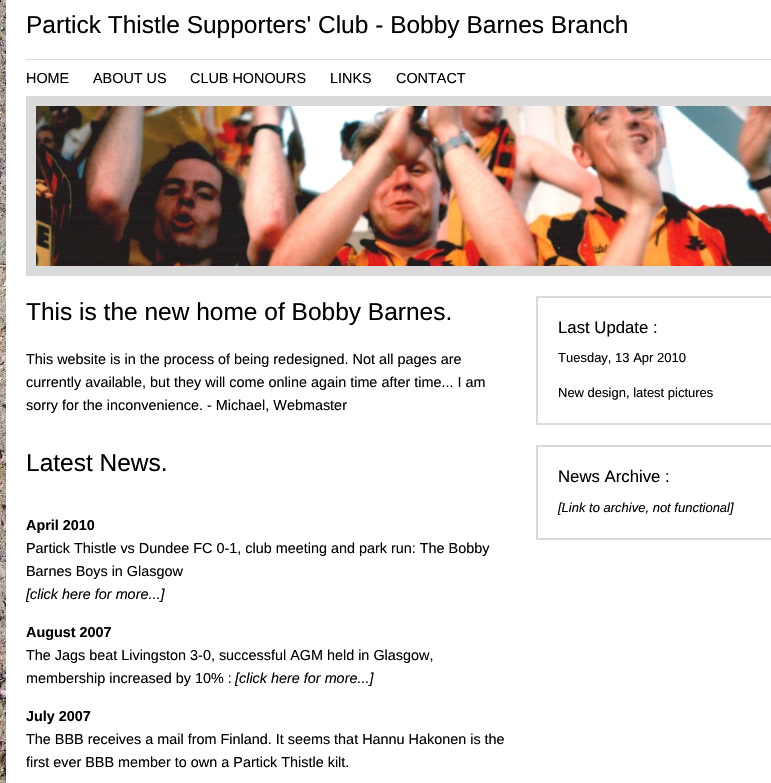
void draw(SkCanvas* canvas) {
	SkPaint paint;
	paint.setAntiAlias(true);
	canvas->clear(0xffffffff);
	canvas->drawImageRect(SkImages::DeferredFromEncodedData(SkData::MakeFromFileName("img1.png")), SkRect::MakeXYWH(0, 0, 6, 783), SkSamplingOptions());
	paint.setColor(0xffdadada);
	canvas->drawRect(SkRect::MakeXYWH(26, 59, 745, 1), paint);
	SkFont f1(fontMgr->matchFamilyStyle("Liberation Sans", SkFontStyle::Normal()), 24.5);
	f1.setSubpixel(true);
	paint.setColor(0xff000000);
	canvas->drawString("Partick Thistle Supporters' Club - Bobby Barnes Branch", 26, 33, f1, paint);
	SkFont f2(fontMgr->matchFamilyStyle("Liberation Sans", SkFontStyle::Normal()), 14.4);
	f2.setSubpixel(true);
	canvas->drawString("HOME", 26, 83, f2, paint);
	canvas->drawString("ABOUT US", 93, 83, f2, paint);
	canvas->drawString("CLUB HONOURS", 190, 83, f2, paint);
	canvas->drawString("LINKS", 330, 83, f2, paint);
	canvas->drawString("CONTACT", 396, 83, f2, paint);
	paint.setColor(0xffdadada);
	canvas->drawRect(SkRect::MakeXYWH(26, 96, 745, 180), paint);
	canvas->drawImageRect(SkImages::DeferredFromEncodedData(SkData::MakeFromFileName("img2.png")), SkRect::MakeXYWH(36, 106, 735, 160), SkSamplingOptions());
	paint.setColor(0xff000000);
	canvas->drawString("This is the new home of Bobby Barnes.", 26, 320, f1, paint);
	canvas->drawString("This website is in the process of being redesigned. Not all pages are", 26, 364, f2, paint);
	canvas->drawString("currently available, but they will come online again time after time... I am", 26, 387, f2, paint);
	canvas->drawString("sorry for the inconvenience. - Michael, Webmaster", 26, 410, f2, paint);
	canvas->drawString("Latest News.", 26, 471, f1, paint);
	SkFont f3(fontMgr->matchFamilyStyle("Liberation Sans", SkFontStyle::Bold()), 14.4);
	f3.setSubpixel(true);
	canvas->drawString("April 2010", 26, 530, f3, paint);
	canvas->drawString("Partick Thistle vs Dundee FC 0-1, club meeting and park run: The Bobby", 26, 553, f2, paint);
	canvas->drawString("Barnes Boys in Glasgow", 26, 576, f2, paint);
	SkFont f4(fontMgr->matchFamilyStyle("Liberation Sans", SkFontStyle::Italic()), 14.4);
	f4.setSubpixel(true);
	canvas->drawString("[click here for more...]", 26, 599, f4, paint);
	canvas->drawString("August 2007", 26, 637, f3, paint);
	canvas->drawString("The Jags beat Livingston 3-0, successful AGM held in Glasgow,", 26, 660, f2, paint);
	canvas->drawString("membership increased by 10% :", 26, 683, f2, paint);
	canvas->drawString("[click here for more...]", 235, 683, f4, paint);
	canvas->drawString("July 2007", 26, 721, f3, paint);
	canvas->drawString("The BBB receives a mail from Finland. It seems that Hannu Hakonen is the", 26, 744, f2, paint);
	canvas->drawString("first ever BBB member to own a Partick Thistle kilt.", 26, 767, f2, paint);
	paint.setStroke(true);
	paint.setStrokeWidth(2);
	paint.setColor(0xffdadada);
	canvas->drawRect(SkRect::MakeXYWH(537, 297, 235, 127), paint);
	SkFont f5(fontMgr->matchFamilyStyle("Liberation Sans", SkFontStyle::Normal()), 16.75);
	f5.setSubpixel(true);
	paint.setStroke(false);
	paint.setColor(0xff000000);
	canvas->drawString("Last Update :", 558, 333, f5, paint);
	SkFont f6(fontMgr->matchFamilyStyle("Liberation Sans", SkFontStyle::Normal()), 13);
	f6.setSubpixel(true);
	canvas->drawString("Tuesday, 13 Apr 2010", 558, 362, f6, paint);
	canvas->drawString("New design, latest pictures", 558, 397, f6, paint);
	paint.setStroke(true);
	paint.setColor(0xffdadada);
	canvas->drawRect(SkRect::MakeXYWH(537, 446, 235, 93), paint);
	paint.setStroke(false);
	paint.setColor(0xff000000);
	canvas->drawString("News Archive :", 558, 482, f5, paint);
	SkFont f7(fontMgr->matchFamilyStyle("Liberation Sans", SkFontStyle::Italic()), 13);
	f7.setSubpixel(true);
	canvas->drawString("[Link to archive, not functional]", 558, 512, f7, paint);
}
